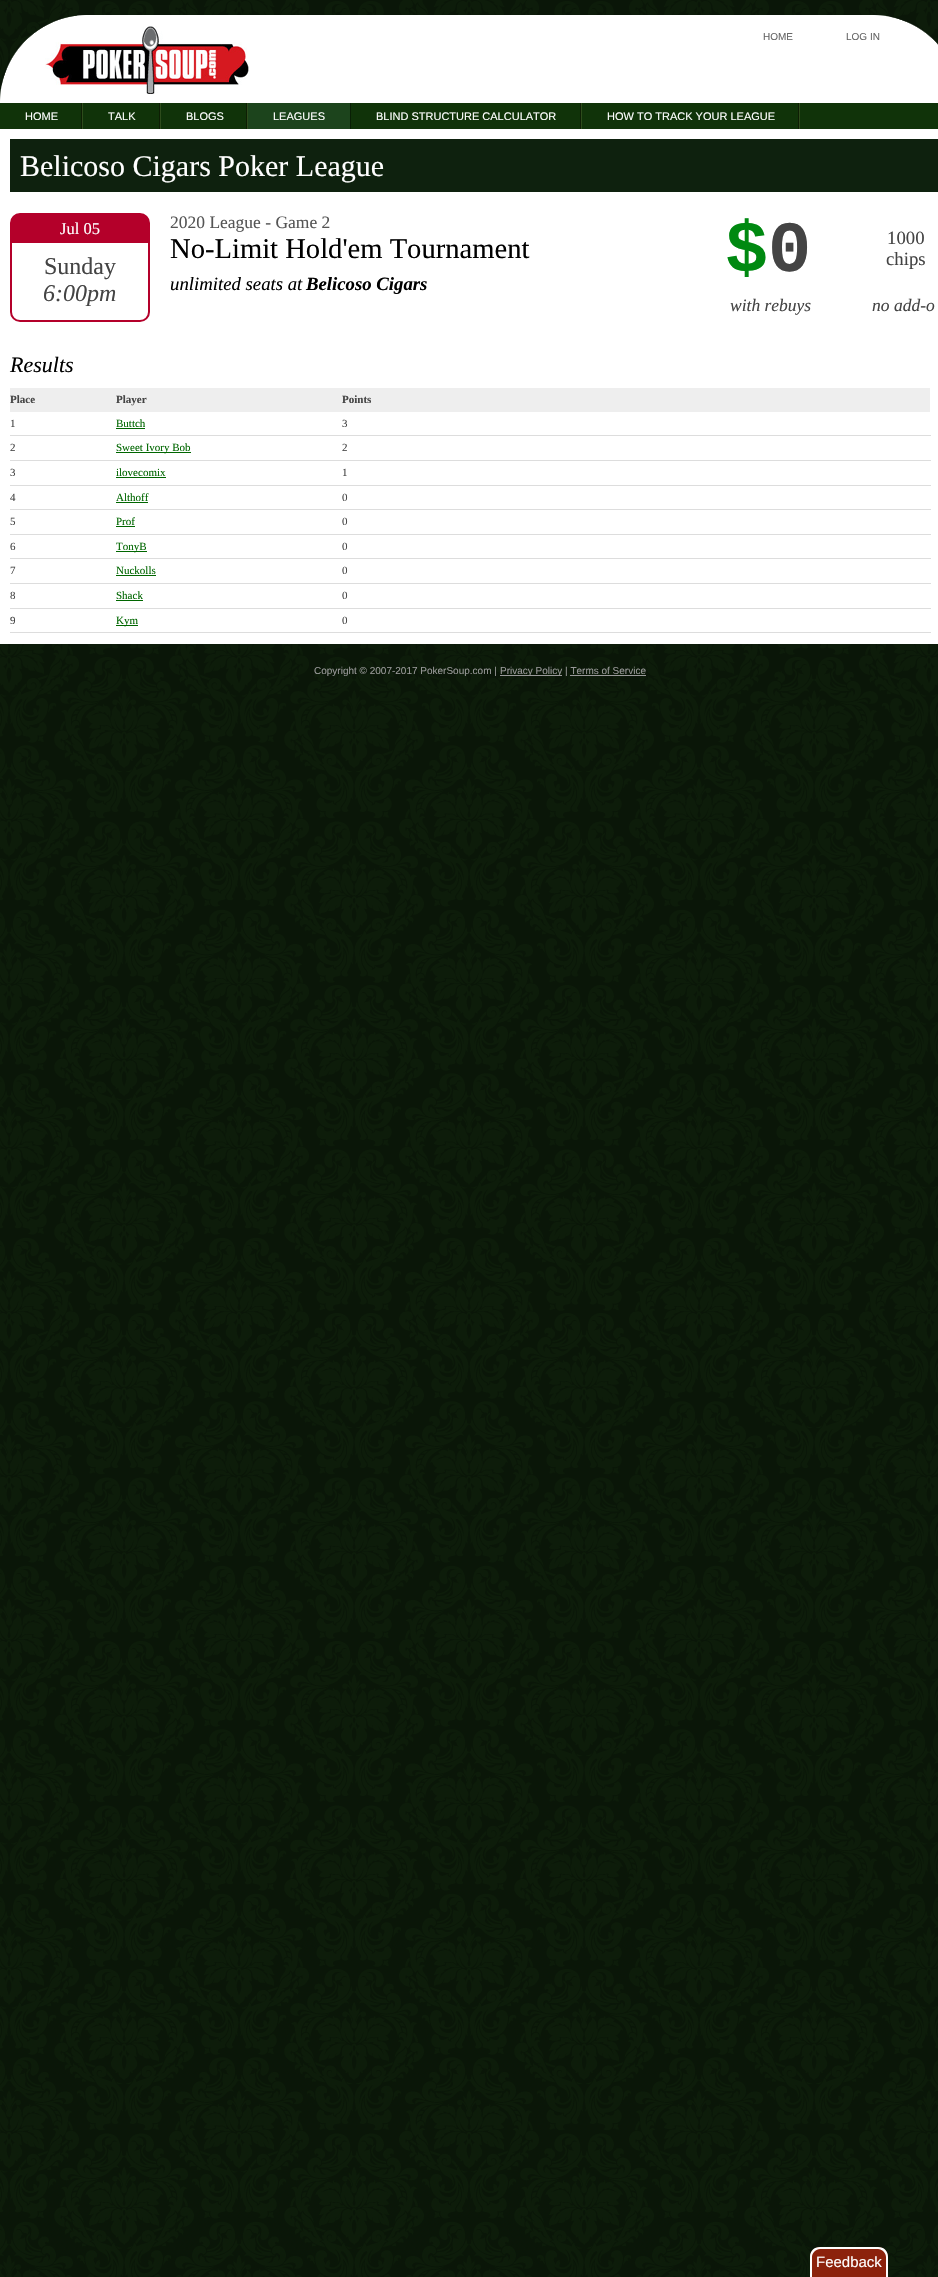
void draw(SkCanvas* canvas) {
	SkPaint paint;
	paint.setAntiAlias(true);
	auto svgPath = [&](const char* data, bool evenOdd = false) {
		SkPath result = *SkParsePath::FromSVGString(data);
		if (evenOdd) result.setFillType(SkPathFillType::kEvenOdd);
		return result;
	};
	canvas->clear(0xffffffff);
	canvas->drawImageRect(SkImages::DeferredFromEncodedData(SkData::MakeFromFileName("img1.png")), SkRect::MakeXYWH(0, 0, 938, 2277), SkSamplingOptions());
	canvas->drawImageRect(SkImages::DeferredFromEncodedData(SkData::MakeFromFileName("img2.png")), SkRect::MakeXYWH(0, 15, 938, 88), SkSamplingOptions());
	canvas->drawImageRect(SkImages::DeferredFromEncodedData(SkData::MakeFromFileName("img3.png")), SkRect::MakeXYWH(45, 26, 204, 68), SkSamplingOptions());
	SkFont f1(fontMgr->matchFamilyStyle("Liberation Sans", SkFontStyle::Normal()), 10);
	f1.setSubpixel(true);
	paint.setColor(0xff666666);
	canvas->drawString("HOME", 763, 40, f1, paint);
	canvas->drawString("LOG IN", 846, 40, f1, paint);
	paint.setColor(0xff103309);
	canvas->drawRect(SkRect::MakeXYWH(0, 103, 938, 26), paint);
	canvas->drawImageRect(SkImages::DeferredFromEncodedData(SkData::MakeFromFileName("img4.png")), SkRect::MakeXYWH(81, 103, 2, 26), SkSamplingOptions());
	SkFont f2(fontMgr->matchFamilyStyle("Liberation Sans", SkFontStyle::Normal()), 11);
	f2.setSubpixel(true);
	paint.setColor(0xffffffff);
	canvas->drawString("HOME", 25, 120, f2, paint);
	canvas->drawImageRect(SkImages::DeferredFromEncodedData(SkData::MakeFromFileName("img4.png")), SkRect::MakeXYWH(159, 103, 2, 26), SkSamplingOptions());
	canvas->drawString("TALK", 108, 120, f2, paint);
	canvas->drawImageRect(SkImages::DeferredFromEncodedData(SkData::MakeFromFileName("img4.png")), SkRect::MakeXYWH(246, 103, 2, 26), SkSamplingOptions());
	canvas->drawString("BLOGS", 186, 120, f2, paint);
	paint.setColor(0xff1c441c);
	canvas->drawRect(SkRect::MakeXYWH(248, 103, 102, 26), paint);
	paint.setColor(0xff091f05);
	canvas->drawRect(SkRect::MakeXYWH(350, 103, 1, 26), paint);
	paint.setColor(0xffffffff);
	canvas->drawString("LEAGUES", 273, 120, f2, paint);
	canvas->drawImageRect(SkImages::DeferredFromEncodedData(SkData::MakeFromFileName("img4.png")), SkRect::MakeXYWH(580, 103, 2, 26), SkSamplingOptions());
	canvas->drawString("BLIND STRUCTURE CALCULATOR", 376, 120, f2, paint);
	canvas->drawImageRect(SkImages::DeferredFromEncodedData(SkData::MakeFromFileName("img4.png")), SkRect::MakeXYWH(798, 103, 2, 26), SkSamplingOptions());
	canvas->drawString("HOW TO TRACK YOUR LEAGUE", 607, 120, f2, paint);
	canvas->drawRect(SkRect::MakeXYWH(0, 129, 938, 515), paint);
	paint.setColor(0xff0e210e);
	canvas->drawRect(SkRect::MakeXYWH(10, 139, 928, 53), paint);
	SkFont f3(fontMgr->matchFamilyStyle("Liberation Serif", SkFontStyle::Normal()), 30);
	f3.setSubpixel(true);
	paint.setColor(0xffffffff);
	canvas->drawString("Belicoso Cigars Poker League", 20, 176, f3, paint);
	paint.setStroke(true);
	paint.setStrokeWidth(2);
	paint.setColor(0xffb4002a);
	canvas->drawRoundRect(SkRect::MakeXYWH(11, 214, 138, 107), 9, 9, paint);
	paint.setStroke(false);
	canvas->drawPath(svgPath("M17 215H143C146 215 148 217 148 220V243H12V220C12 217 14 215 17 215Z"), paint);
	SkFont f4(fontMgr->matchFamilyStyle("Liberation Serif", SkFontStyle::Normal()), 16.5);
	f4.setSubpixel(true);
	paint.setColor(0xffffffff);
	canvas->drawString("Jul 05", 60, 234, f4, paint);
	SkFont f5(fontMgr->matchFamilyStyle("Liberation Serif", SkFontStyle::Normal()), 24);
	f5.setSubpixel(true);
	paint.setColor(0xff444444);
	canvas->drawString("Sunday", 44, 274, f5, paint);
	SkFont f6(fontMgr->matchFamilyStyle("Liberation Serif", SkFontStyle::Italic()), 24);
	f6.setSubpixel(true);
	canvas->drawString("6:00pm", 43, 301, f6, paint);
	SkFont f7(fontMgr->matchFamilyStyle("Liberation Serif", SkFontStyle::Normal()), 17.5);
	f7.setSubpixel(true);
	paint.setColor(0xff555555);
	canvas->drawString("2020 League - Game 2", 170, 228, f7, paint);
	SkFont f8(fontMgr->matchFamilyStyle("Liberation Serif", SkFontStyle::Normal()), 28.6);
	f8.setSubpixel(true);
	paint.setColor(0xff000000);
	canvas->drawString("No-Limit Hold'em Tournament", 170, 258, f8, paint);
	SkFont f9(fontMgr->matchFamilyStyle("Liberation Serif", SkFontStyle::Italic()), 18.75);
	f9.setSubpixel(true);
	canvas->drawString("unlimited seats at", 170, 290, f9, paint);
	SkFont f10(fontMgr->matchFamilyStyle("Liberation Serif", SkFontStyle::BoldItalic()), 18.75);
	f10.setSubpixel(true);
	canvas->drawString("Belicoso Cigars", 306, 290, f10, paint);
	SkFont f11(fontMgr->matchFamilyStyle("Liberation Mono", SkFontStyle::Bold()), 72);
	f11.setSubpixel(true);
	paint.setColor(0xff008911);
	canvas->drawString("$", 725, 271, f11, paint);
	paint.setColor(0xff444444);
	canvas->drawString("0", 768, 271, f11, paint);
	SkFont f12(fontMgr->matchFamilyStyle("Liberation Serif", SkFontStyle::Normal()), 18.75);
	f12.setSubpixel(true);
	canvas->drawString("1000", 887, 244, f12, paint);
	canvas->drawString("chips", 886, 265, f12, paint);
	SkFont f13(fontMgr->matchFamilyStyle("Liberation Serif", SkFontStyle::Italic()), 17.5);
	f13.setSubpixel(true);
	canvas->drawString("with rebuys", 730, 311, f13, paint);
	canvas->drawString("no add-o", 872, 311, f13, paint);
	SkFont f14(fontMgr->matchFamilyStyle("Liberation Serif", SkFontStyle::Italic()), 22);
	f14.setSubpixel(true);
	paint.setColor(0xff000000);
	canvas->drawString("Results", 10, 372, f14, paint);
	paint.setColor(0xffeeeeee);
	canvas->drawRect(SkRect::MakeXYWH(10, 388, 920, 24), paint);
	SkFont f15(fontMgr->matchFamilyStyle("Liberation Serif", SkFontStyle::Bold()), 11);
	f15.setSubpixel(true);
	paint.setColor(0xff444444);
	canvas->drawString("Place", 10, 403, f15, paint);
	canvas->drawString("Player", 116, 403, f15, paint);
	canvas->drawString("Points", 342, 403, f15, paint);
	SkFont f16(fontMgr->matchFamilyStyle("Liberation Serif", SkFontStyle::Normal()), 11);
	f16.setSubpixel(true);
	canvas->drawString("1", 10, 427, f16, paint);
	paint.setColor(0xff006600);
	canvas->drawString("Buttch", 116, 427, f16, paint);
	canvas->drawRect(SkRect::MakeXYWH(116, 428, 29, 1), paint);
	paint.setColor(0xffdddddd);
	canvas->drawRect(SkRect::MakeXYWH(10, 435, 921, 1), paint);
	paint.setColor(0xff444444);
	canvas->drawString("3", 342, 427, f16, paint);
	canvas->drawString("2", 10, 451, f16, paint);
	paint.setColor(0xff006600);
	canvas->drawRect(SkRect::MakeXYWH(116, 452, 75, 1), paint);
	canvas->drawString("Sweet Ivory Bob", 116, 451, f16, paint);
	paint.setColor(0xffdddddd);
	canvas->drawRect(SkRect::MakeXYWH(10, 460, 921, 1), paint);
	paint.setColor(0xff444444);
	canvas->drawString("2", 342, 451, f16, paint);
	canvas->drawString("3", 10, 476, f16, paint);
	paint.setColor(0xff006600);
	canvas->drawString("ilovecomix", 116, 476, f16, paint);
	canvas->drawRect(SkRect::MakeXYWH(116, 477, 50, 1), paint);
	paint.setColor(0xffdddddd);
	canvas->drawRect(SkRect::MakeXYWH(10, 485, 921, 1), paint);
	paint.setColor(0xff444444);
	canvas->drawString("1", 342, 476, f16, paint);
	canvas->drawString("4", 10, 501, f16, paint);
	paint.setColor(0xff006600);
	canvas->drawString("Althoff", 116, 501, f16, paint);
	canvas->drawRect(SkRect::MakeXYWH(116, 502, 32, 1), paint);
	paint.setColor(0xffdddddd);
	canvas->drawRect(SkRect::MakeXYWH(10, 509, 921, 1), paint);
	paint.setColor(0xff444444);
	canvas->drawString("0", 342, 501, f16, paint);
	canvas->drawString("5", 10, 525, f16, paint);
	paint.setColor(0xff006600);
	canvas->drawString("Prof", 116, 525, f16, paint);
	canvas->drawRect(SkRect::MakeXYWH(116, 526, 19, 1), paint);
	paint.setColor(0xffdddddd);
	canvas->drawRect(SkRect::MakeXYWH(10, 534, 921, 1), paint);
	paint.setColor(0xff444444);
	canvas->drawString("0", 342, 525, f16, paint);
	canvas->drawString("6", 10, 550, f16, paint);
	paint.setColor(0xff006600);
	canvas->drawRect(SkRect::MakeXYWH(116, 551, 31, 1), paint);
	canvas->drawString("TonyB", 116, 550, f16, paint);
	paint.setColor(0xffdddddd);
	canvas->drawRect(SkRect::MakeXYWH(10, 558, 921, 1), paint);
	paint.setColor(0xff444444);
	canvas->drawString("0", 342, 550, f16, paint);
	canvas->drawString("7", 10, 574, f16, paint);
	paint.setColor(0xff006600);
	canvas->drawString("Nuckolls", 116, 574, f16, paint);
	canvas->drawRect(SkRect::MakeXYWH(116, 575, 40, 1), paint);
	paint.setColor(0xffdddddd);
	canvas->drawRect(SkRect::MakeXYWH(10, 583, 921, 1), paint);
	paint.setColor(0xff444444);
	canvas->drawString("0", 342, 574, f16, paint);
	canvas->drawString("8", 10, 599, f16, paint);
	paint.setColor(0xff006600);
	canvas->drawString("Shack", 116, 599, f16, paint);
	canvas->drawRect(SkRect::MakeXYWH(116, 600, 27, 1), paint);
	paint.setColor(0xffdddddd);
	canvas->drawRect(SkRect::MakeXYWH(10, 608, 921, 1), paint);
	paint.setColor(0xff444444);
	canvas->drawString("0", 342, 599, f16, paint);
	canvas->drawString("9", 10, 624, f16, paint);
	paint.setColor(0xff006600);
	canvas->drawRect(SkRect::MakeXYWH(116, 625, 22, 1), paint);
	canvas->drawString("Kym", 116, 624, f16, paint);
	paint.setColor(0xffdddddd);
	canvas->drawRect(SkRect::MakeXYWH(10, 632, 921, 1), paint);
	paint.setColor(0xff444444);
	canvas->drawString("0", 342, 624, f16, paint);
	paint.setColor(0xff999999);
	canvas->drawString("Copyright © 2007-2017 PokerSoup.com |", 314, 674, f1, paint);
	canvas->drawRect(SkRect::MakeXYWH(500, 675, 62, 1), paint);
	canvas->drawString("Privacy Policy | Terms of Service", 500, 674, f1, paint);
	canvas->drawRect(SkRect::MakeXYWH(570, 675, 76, 1), paint);
	paint.setColor(0xff8c220c);
	canvas->drawPath(svgPath("M820 2247H878C883.5 2247 888 2251.5 888 2257V2277H810V2257C810 2251.5 814.5 2247 820 2247Z"), paint);
	paint.setColor(0xffffffff);
	canvas->drawPath(svgPath("M820 2247H878C884 2247 888 2251 888 2257V2277H810V2257C810 2251 814 2247 820 2247ZM820 2249H878C882 2249 886 2253 886 2257V2277H812V2257C812 2253 816 2249 820 2249Z", true), paint);
	SkFont f17(fontMgr->matchFamilyStyle("Liberation Sans", SkFontStyle::Normal()), 15);
	f17.setSubpixel(true);
	canvas->drawString("Feedback", 816, 2267, f17, paint);
}
